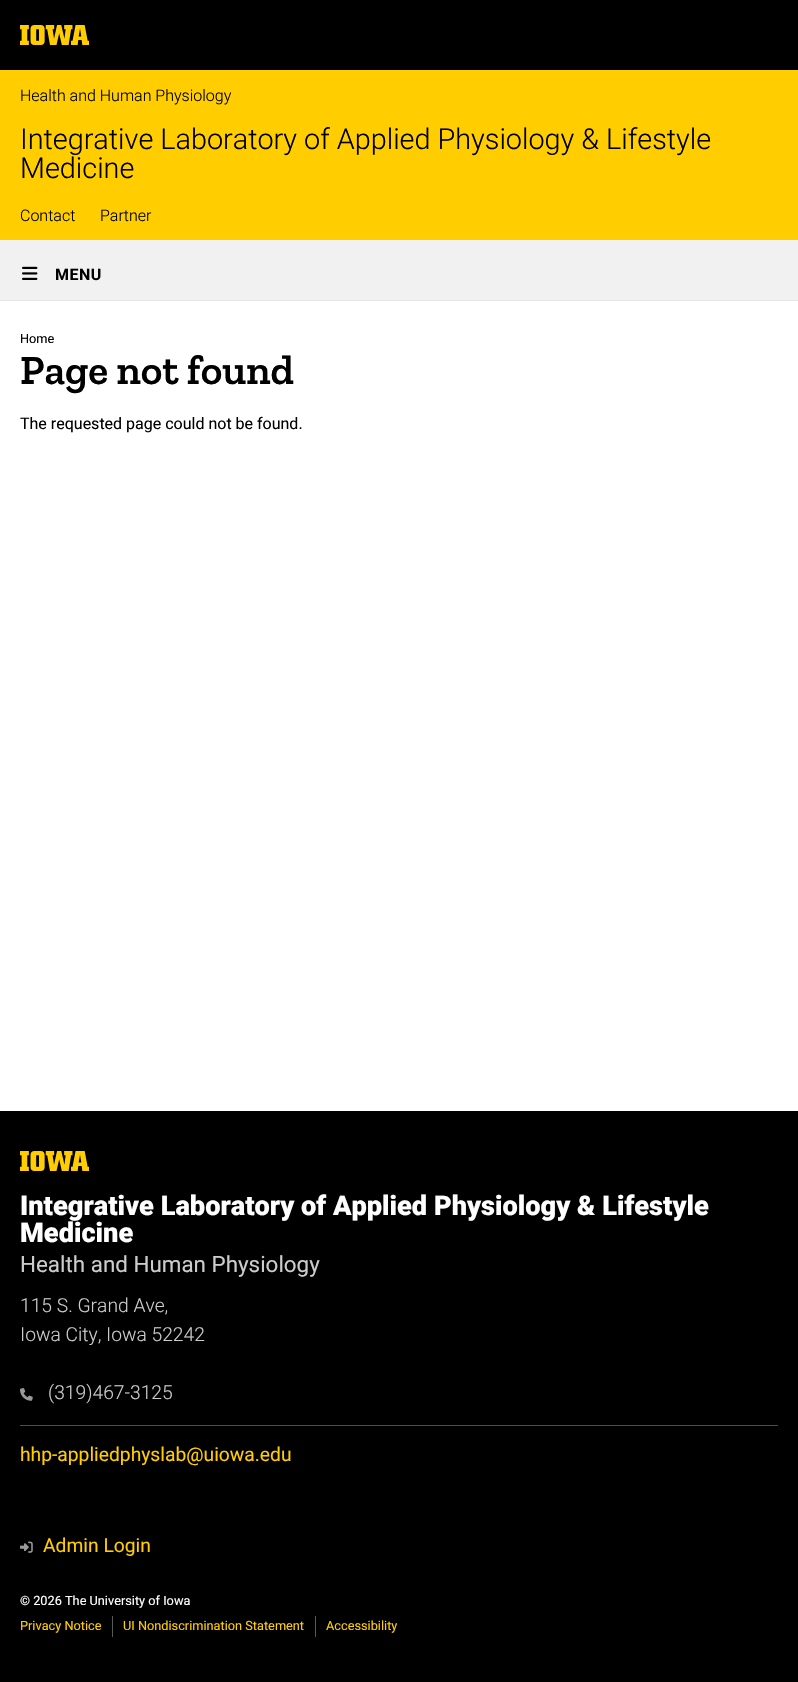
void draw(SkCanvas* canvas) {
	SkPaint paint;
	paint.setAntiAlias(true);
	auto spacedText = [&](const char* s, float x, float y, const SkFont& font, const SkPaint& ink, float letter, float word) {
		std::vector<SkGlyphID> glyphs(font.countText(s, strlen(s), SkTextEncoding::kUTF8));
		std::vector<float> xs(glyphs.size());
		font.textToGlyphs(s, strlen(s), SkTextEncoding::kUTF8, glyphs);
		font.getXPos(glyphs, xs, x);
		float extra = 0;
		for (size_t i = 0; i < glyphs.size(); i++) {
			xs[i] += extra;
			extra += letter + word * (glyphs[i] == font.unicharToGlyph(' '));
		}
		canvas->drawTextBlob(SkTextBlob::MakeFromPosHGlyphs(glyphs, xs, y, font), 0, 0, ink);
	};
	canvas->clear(0xffffffff);
	paint.setColor(0xff000000);
	canvas->drawRect(SkRect::MakeXYWH(0, 0, 798, 70), paint);
	canvas->drawImageRect(SkImages::DeferredFromEncodedData(SkData::MakeFromFileName("img1.png")), SkRect::MakeXYWH(20, 25, 69, 20), SkSamplingOptions());
	paint.setColor(0xffffcd00);
	canvas->drawRect(SkRect::MakeXYWH(0, 70, 798, 170), paint);
	SkFont f1(fontMgr->matchFamilyStyle("Roboto", SkFontStyle(300, SkFontStyle::kNormal_Width, SkFontStyle::kUpright_Slant)), 16);
	f1.setSubpixel(true);
	paint.setColor(0xff000000);
	canvas->drawString("Health and Human Physiology", 20, 101, f1, paint);
	SkFont f2(fontMgr->matchFamilyStyle("Roboto", SkFontStyle(300, SkFontStyle::kNormal_Width, SkFontStyle::kUpright_Slant)), 28.8);
	f2.setSubpixel(true);
	canvas->drawString("Integrative Laboratory of Applied Physiology & Lifestyle", 20, 149, f2, paint);
	canvas->drawString("Medicine", 20, 178, f2, paint);
	canvas->drawString("Contact", 20, 221, f1, paint);
	canvas->drawString("Partner", 100, 221, f1, paint);
	paint.setColor(0xffe6e5e5);
	canvas->drawRect(SkRect::MakeXYWH(0, 300, 798, 1), paint);
	paint.setColor(0xfff1f1f1);
	canvas->drawRect(SkRect::MakeXYWH(0, 240, 798, 60), paint);
	canvas->drawImageRect(SkImages::DeferredFromEncodedData(SkData::MakeFromFileName("img2.png")), SkRect::MakeXYWH(22, 266, 16, 14), SkSamplingOptions());
	SkFont f3(fontMgr->matchFamilyStyle("Roboto", SkFontStyle::Bold()), 16);
	f3.setSubpixel(true);
	paint.setColor(0xff000000);
	spacedText("MENU", 55, 280, f3, paint, 0.5, 0);
	SkFont f4(fontMgr->matchFamilyStyle("Roboto", SkFontStyle::Normal()), 12.75);
	f4.setSubpixel(true);
	canvas->drawString("Home", 20, 343, f4, paint);
	SkFont f5(fontMgr->matchFamilyStyle("Zilla Slab", SkFontStyle(600, SkFontStyle::kNormal_Width, SkFontStyle::kUpright_Slant)), 41.5);
	f5.setSubpixel(true);
	canvas->drawString("Page not found", 20, 384, f5, paint);
	SkFont f6(fontMgr->matchFamilyStyle("Roboto", SkFontStyle::Normal()), 16);
	f6.setSubpixel(true);
	canvas->drawString("The requested page could not be found.", 20, 429, f6, paint);
	canvas->drawRect(SkRect::MakeXYWH(0, 1111, 798, 571), paint);
	canvas->drawImageRect(SkImages::DeferredFromEncodedData(SkData::MakeFromFileName("img1.png")), SkRect::MakeXYWH(20, 1151, 69, 20), SkSamplingOptions());
	SkFont f7(fontMgr->matchFamilyStyle("Roboto", SkFontStyle(900, SkFontStyle::kNormal_Width, SkFontStyle::kUpright_Slant)), 27.2);
	f7.setSubpixel(true);
	paint.setColor(0xffffffff);
	canvas->drawString("Integrative Laboratory of Applied Physiology & Lifestyle", 20, 1215, f7, paint);
	canvas->drawString("Medicine", 20, 1242, f7, paint);
	SkFont f8(fontMgr->matchFamilyStyle("Roboto", SkFontStyle::Normal()), 22.4);
	f8.setSubpixel(true);
	paint.setColor(0xffcccccc);
	canvas->drawString("Health and Human Physiology", 20, 1272, f8, paint);
	SkFont f9(fontMgr->matchFamilyStyle("Roboto", SkFontStyle(300, SkFontStyle::kNormal_Width, SkFontStyle::kUpright_Slant)), 19.25);
	f9.setSubpixel(true);
	canvas->drawString("115 S. Grand Ave,", 20, 1312, f9, paint);
	canvas->drawString("Iowa City, Iowa 52242", 20, 1341, f9, paint);
	canvas->drawImageRect(SkImages::DeferredFromEncodedData(SkData::MakeFromFileName("img3.png")), SkRect::MakeXYWH(20, 1388, 13, 13), SkSamplingOptions());
	canvas->drawString("(319)467-3125", 48, 1399, f9, paint);
	paint.setColor(0xff4d4d4d);
	canvas->drawRect(SkRect::MakeXYWH(20, 1425, 758, 1), paint);
	SkFont f10(fontMgr->matchFamilyStyle("Roboto", SkFontStyle::Normal()), 19.25);
	f10.setSubpixel(true);
	paint.setColor(0xffffcd00);
	canvas->drawString("hhp-appliedphyslab@uiowa.edu", 20, 1461, f10, paint);
	canvas->drawImageRect(SkImages::DeferredFromEncodedData(SkData::MakeFromFileName("img4.png")), SkRect::MakeXYWH(20, 1541, 13, 12), SkSamplingOptions());
	canvas->drawString("Admin Login", 43, 1552, f10, paint);
	paint.setColor(0xffffffff);
	canvas->drawString("© 2026 The University of Iowa", 20, 1605, f4, paint);
	paint.setColor(0xff5d5656);
	canvas->drawRect(SkRect::MakeXYWH(112, 1616, 1, 21), paint);
	paint.setColor(0xffffcd00);
	canvas->drawString("Privacy Notice", 20, 1630, f4, paint);
	paint.setColor(0xff5d5656);
	canvas->drawRect(SkRect::MakeXYWH(315, 1616, 1, 21), paint);
	paint.setColor(0xffffcd00);
	canvas->drawString("UI Nondiscrimination Statement", 123, 1630, f4, paint);
	canvas->drawString("Accessibility", 326, 1630, f4, paint);
}
